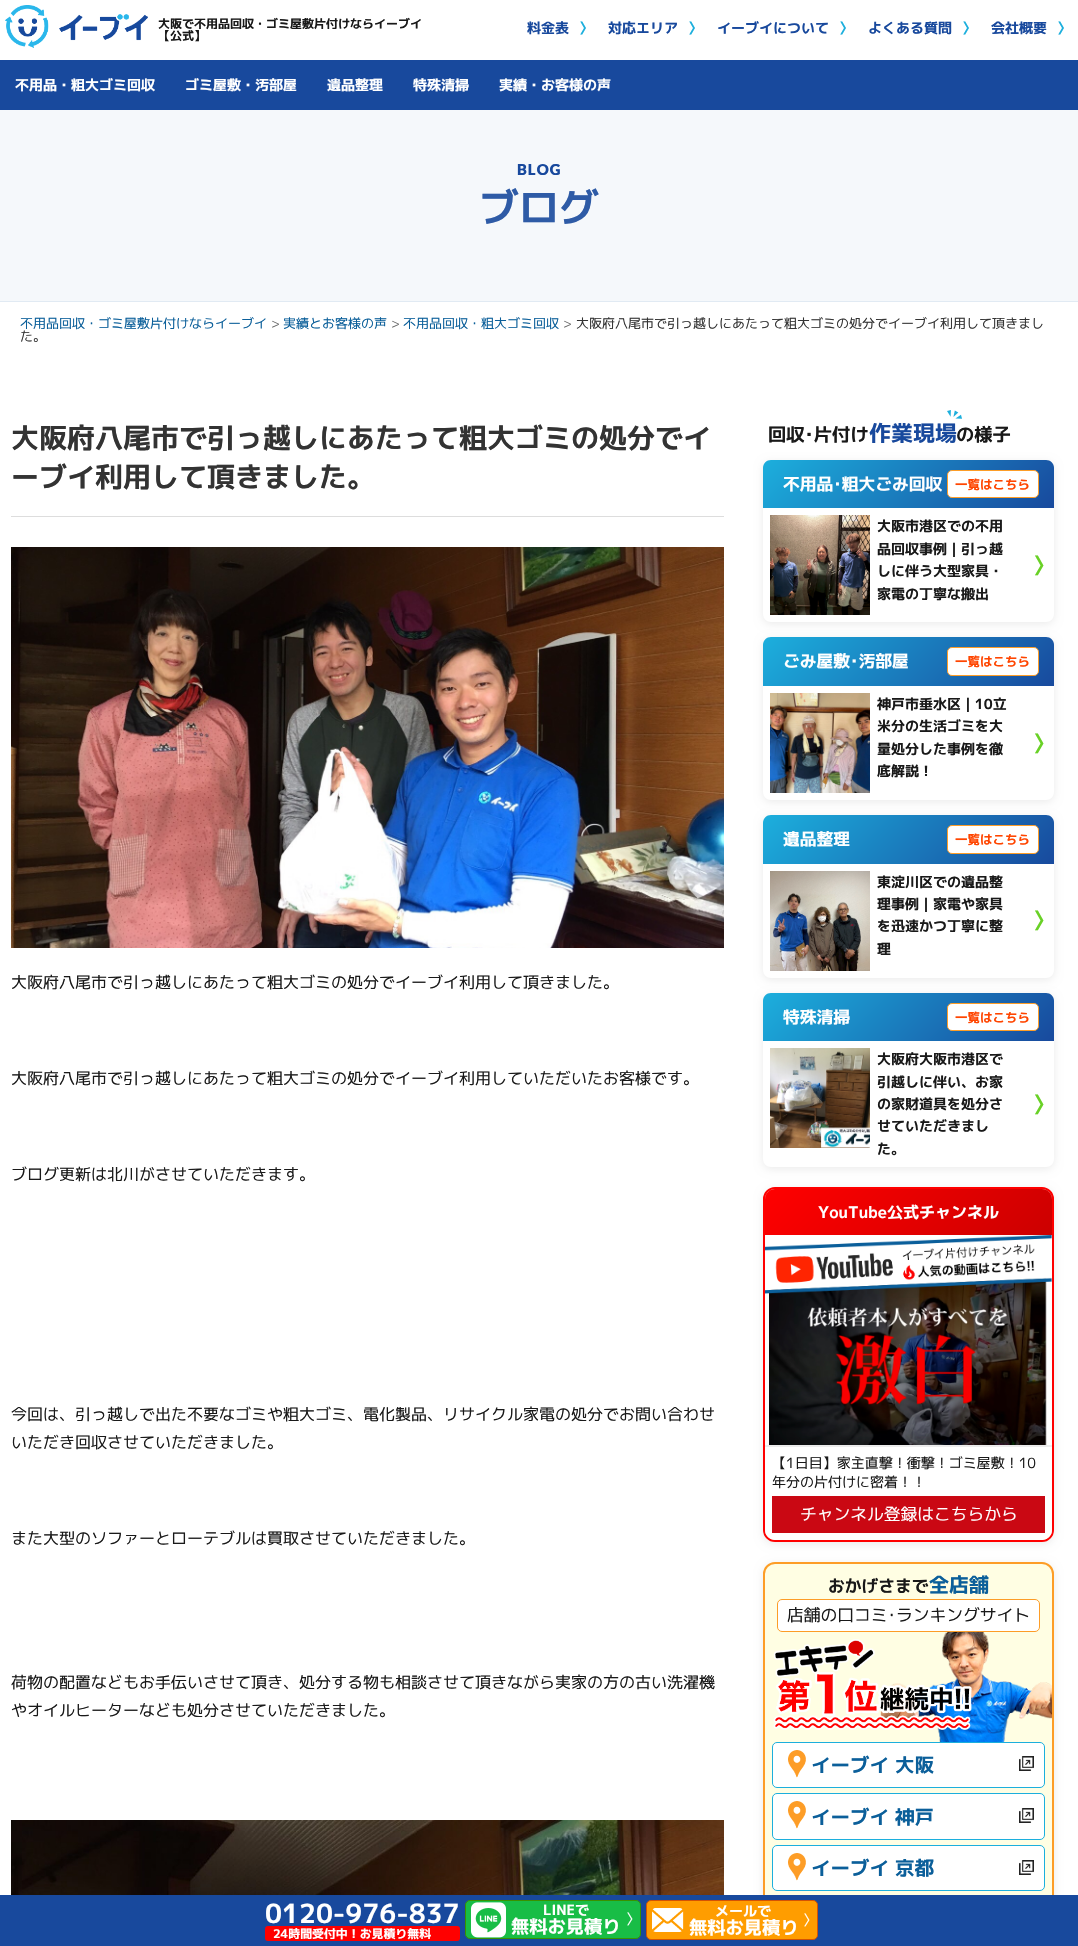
void draw(SkCanvas* canvas) {
	SkPaint paint;
	paint.setAntiAlias(true);
	auto spacedText = [&](const char* s, float x, float y, const SkFont& font, const SkPaint& ink, float letter, float word) {
		std::vector<SkGlyphID> glyphs(font.countText(s, strlen(s), SkTextEncoding::kUTF8));
		std::vector<float> xs(glyphs.size());
		font.textToGlyphs(s, strlen(s), SkTextEncoding::kUTF8, glyphs);
		font.getXPos(glyphs, xs, x);
		float extra = 0;
		for (size_t i = 0; i < glyphs.size(); i++) {
			xs[i] += extra;
			extra += letter + word * (glyphs[i] == font.unicharToGlyph(' '));
		}
		canvas->drawTextBlob(SkTextBlob::MakeFromPosHGlyphs(glyphs, xs, y, font), 0, 0, ink);
	};
	auto svgPath = [&](const char* data, bool evenOdd = false) {
		SkPath result = *SkParsePath::FromSVGString(data);
		if (evenOdd) result.setFillType(SkPathFillType::kEvenOdd);
		return result;
	};
	canvas->clear(0xffffffff);
	canvas->drawImageRect(SkImages::DeferredFromEncodedData(SkData::MakeFromFileName("img1.png")), SkRect::MakeXYWH(5, 5, 143, 43), SkSamplingOptions());
	SkFont f1(fontMgr->matchFamilyStyle("M PLUS 1p", SkFontStyle::Bold()), 12);
	f1.setSubpixel(true);
	paint.setColor(0xff191919);
	canvas->drawString("大阪で不用品回収・ゴミ屋敷片付けならイーブイ", 158, 28, f1, paint);
	canvas->drawString("【公式】", 158, 40, f1, paint);
	SkFont f2(fontMgr->matchFamilyStyle("M PLUS 1p", SkFontStyle::Bold()), 14);
	f2.setSubpixel(true);
	paint.setColor(0xff18499d);
	canvas->drawString("料金表", 527, 33, f2, paint);
	paint.setColor(0xff1cafdd);
	canvas->drawString("〉", 579, 33, f2, paint);
	paint.setColor(0xff18499d);
	canvas->drawString("対応エリア", 608, 33, f2, paint);
	paint.setColor(0xff1cafdd);
	canvas->drawString("〉", 688, 33, f2, paint);
	paint.setColor(0xff18499d);
	canvas->drawString("イーブイについて", 717, 33, f2, paint);
	paint.setColor(0xff1cafdd);
	canvas->drawString("〉", 839, 33, f2, paint);
	paint.setColor(0xff18499d);
	canvas->drawString("よくある質問", 868, 33, f2, paint);
	paint.setColor(0xff1cafdd);
	canvas->drawString("〉", 962, 33, f2, paint);
	paint.setColor(0xff18499d);
	canvas->drawString("会社概要", 991, 33, f2, paint);
	paint.setColor(0xff1cafdd);
	canvas->drawString("〉", 1057, 33, f2, paint);
	paint.setColor(0xff18499d);
	canvas->drawRect(SkRect::MakeXYWH(0, 60, 1078, 50), paint);
	paint.setColor(0xffffffff);
	canvas->drawString("不用品・粗大ゴミ回収", 15, 90, f2, paint);
	canvas->drawString("ゴミ屋敷・汚部屋", 185, 90, f2, paint);
	canvas->drawString("遺品整理", 327, 90, f2, paint);
	canvas->drawString("特殊清掃", 413, 90, f2, paint);
	canvas->drawString("実績・お客様の声", 499, 90, f2, paint);
	paint.setColor(0x14000000);
	paint.setMaskFilter(SkMaskFilter::MakeBlur(kNormal_SkBlurStyle, 4));
	canvas->drawRoundRect(SkRect::MakeXYWH(763, 1564, 291, 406), 12, 12, paint);
	paint.setMaskFilter(nullptr);
	paint.setColor(0xfffffee3);
	canvas->drawRoundRect(SkRect::MakeXYWH(763, 1562, 291, 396), 12, 12, paint);
	canvas->drawImageRect(SkImages::DeferredFromEncodedData(SkData::MakeFromFileName("img12.png")), SkRect::MakeXYWH(880, 1632, 172, 110), SkSamplingOptions());
	paint.setStroke(true);
	paint.setStrokeWidth(2);
	paint.setColor(0xfffd9d27);
	canvas->drawRoundRect(SkRect::MakeXYWH(764, 1563, 289, 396), 11, 11, paint);
	paint.setStroke(false);
	paint.setColor(0xff18499d);
	canvas->drawRect(SkRect::MakeXYWH(0, 1895, 1078, 51), paint);
	SkFont f3(fontMgr->matchFamilyStyle("M PLUS 1p", SkFontStyle::Bold()), 26.5);
	f3.setSubpixel(true);
	paint.setColor(0xffffffff);
	canvas->drawString("0120-976-837", 265, 1923, f3, paint);
	paint.setColor(0xffff0000);
	canvas->drawRoundRect(SkRect::MakeXYWH(265, 1926, 195, 15), 3, 3, paint);
	SkFont f4(fontMgr->matchFamilyStyle("M PLUS 1p", SkFontStyle::Bold()), 11.9);
	f4.setSubpixel(true);
	paint.setColor(0xffffffff);
	canvas->drawString("24時間受付中！お見積り無料", 273, 1938, f4, paint);
	paint.setColor(0xff18bd46);
	canvas->drawRoundRect(SkRect::MakeXYWH(465.5, 1900.5, 175, 38), 4.5, 4.5, paint);
	paint.setStroke(true);
	paint.setStrokeWidth(1);
	paint.setColor(0xff399100);
	canvas->drawRoundRect(SkRect::MakeXYWH(465.5, 1900.5, 175, 38), 4.5, 4.5, paint);
	canvas->drawImageRect(SkImages::DeferredFromEncodedData(SkData::MakeFromFileName("img2.png")), SkRect::MakeXYWH(471, 1902, 35, 36), SkSamplingOptions());
	paint.setStroke(false);
	paint.setColor(0xffffffff);
	canvas->drawString("LINEで", 543, 1915, f2, paint);
	SkFont f5(fontMgr->matchFamilyStyle("M PLUS 1p", SkFontStyle::Bold()), 18.25);
	f5.setSubpixel(true);
	canvas->drawString("無料お見積り", 511, 1933, f5, paint);
	SkFont f6(fontMgr->matchFamilyStyle("M PLUS 1p", SkFontStyle::Normal()), 14);
	f6.setSubpixel(true);
	canvas->drawString("〉", 626, 1924, f6, paint);
	paint.setColor(0xffff9d00);
	canvas->drawRoundRect(SkRect::MakeXYWH(646.5, 1900.5, 171, 39), 4.5, 4.5, paint);
	paint.setStroke(true);
	paint.setColor(0xffd35303);
	canvas->drawRoundRect(SkRect::MakeXYWH(646.5, 1900.5, 171, 39), 4.5, 4.5, paint);
	canvas->drawImageRect(SkImages::DeferredFromEncodedData(SkData::MakeFromFileName("img3.png")), SkRect::MakeXYWH(652, 1908, 32, 24), SkSamplingOptions());
	paint.setStroke(false);
	paint.setColor(0xffffffff);
	canvas->drawString("メールで", 715, 1916, f2, paint);
	canvas->drawString("無料お見積り", 689, 1934, f5, paint);
	canvas->drawString("〉", 803, 1925, f6, paint);
	paint.setColor(0xfff5f8fb);
	canvas->drawRect(SkRect::MakeXYWH(0, 110, 1078, 191), paint);
	SkFont f7(fontMgr->matchFamilyStyle("Lato", SkFontStyle(900, SkFontStyle::kNormal_Width, SkFontStyle::kUpright_Slant)), 15);
	f7.setSubpixel(true);
	paint.setColor(0xff18499d);
	spacedText("BLOG", 517, 175, f7, paint, 1, 0);
	SkFont f8(fontMgr->matchFamilyStyle("M PLUS 1p", SkFontStyle::Bold()), 40);
	f8.setSubpixel(true);
	paint.setColor(0xff2e5ba6);
	canvas->drawString("ブログ", 479, 222, f8, paint);
	paint.setColor(0xffe1eaf3);
	canvas->drawRect(SkRect::MakeXYWH(0, 301, 1078, 1), paint);
	SkFont f9(fontMgr->matchFamilyStyle("M PLUS 1p", SkFontStyle::Normal()), 13);
	f9.setSubpixel(true);
	paint.setColor(0xff0b5f9a);
	canvas->drawString("不用品回収・ゴミ屋敷片付けならイーブイ", 20, 328, f9, paint);
	paint.setColor(0xff666666);
	canvas->drawString(">", 271, 328, f9, paint);
	paint.setColor(0xff0b5f9a);
	canvas->drawString("実績とお客様の声", 283, 328, f9, paint);
	paint.setColor(0xff666666);
	canvas->drawString(">", 391, 328, f9, paint);
	paint.setColor(0xff0b5f9a);
	canvas->drawString("不用品回収・粗大ゴミ回収", 403, 328, f9, paint);
	paint.setColor(0xff666666);
	canvas->drawString(">", 563, 328, f9, paint);
	paint.setColor(0xff333333);
	canvas->drawString("大阪府八尾市で引っ越しにあたって粗大ゴミの処分でイーブイ利用して頂きまし", 576, 328, f9, paint);
	canvas->drawString("た。", 20, 341, f9, paint);
	paint.setColor(0xffdddddd);
	canvas->drawRect(SkRect::MakeXYWH(11, 516, 713, 1), paint);
	SkFont f10(fontMgr->matchFamilyStyle("M PLUS 1p", SkFontStyle::Bold()), 28);
	f10.setSubpixel(true);
	paint.setColor(0xff333333);
	canvas->drawString("大阪府八尾市で引っ越しにあたって粗大ゴミの処分でイ", 11, 448, f10, paint);
	canvas->drawString("ーブイ利用して頂きました。", 11, 487, f10, paint);
	canvas->drawImageRect(SkImages::DeferredFromEncodedData(SkData::MakeFromFileName("img4.png")), SkRect::MakeXYWH(11, 547, 713, 401), SkSamplingOptions());
	SkFont f11(fontMgr->matchFamilyStyle("M PLUS 1p", SkFontStyle::Normal()), 16);
	f11.setSubpixel(true);
	paint.setColor(0xff191919);
	canvas->drawString("大阪府八尾市で引っ越しにあたって粗大ゴミの処分でイーブイ利用して頂きました。", 11, 988, f11, paint);
	canvas->drawString("大阪府八尾市で引っ越しにあたって粗大ゴミの処分でイーブイ利用していただいたお客様です。", 11, 1084, f11, paint);
	canvas->drawString("ブログ更新は北川がさせていただきます。", 11, 1180, f11, paint);
	canvas->drawString("今回は、引っ越しで出た不要なゴミや粗大ゴミ、電化製品、リサイクル家電の処分でお問い合わせ", 11, 1420, f11, paint);
	canvas->drawString("いただき回収させていただきました。", 11, 1448, f11, paint);
	canvas->drawString("また大型のソファーとローテブルは買取させていただきました。", 11, 1544, f11, paint);
	canvas->drawString("荷物の配置などもお手伝いさせて頂き、処分する物も相談させて頂きながら実家の方の古い洗濯機", 11, 1688, f11, paint);
	canvas->drawString("やオイルヒーターなども処分させていただきました。", 11, 1716, f11, paint);
	canvas->drawImageRect(SkImages::DeferredFromEncodedData(SkData::MakeFromFileName("img5.png")), SkRect::MakeXYWH(11, 1820, 713, 75), SkSamplingOptions());
	canvas->drawString("回収･片付け", 768, 441, f5, paint);
	canvas->drawImageRect(SkImages::DeferredFromEncodedData(SkData::MakeFromFileName("img6.png")), SkRect::MakeXYWH(947, 410, 15, 9), SkSamplingOptions());
	SkFont f12(fontMgr->matchFamilyStyle("M PLUS 1p", SkFontStyle::Bold()), 22);
	f12.setSubpixel(true);
	paint.setColor(0xff18499d);
	canvas->drawString("作業現場", 869, 441, f12, paint);
	paint.setColor(0xff191919);
	canvas->drawString("の様子", 956, 441, f5, paint);
	paint.setColor(0x14000000);
	paint.setMaskFilter(SkMaskFilter::MakeBlur(kNormal_SkBlurStyle, 4));
	canvas->drawRoundRect(SkRect::MakeXYWH(763, 462, 291, 162), 8, 8, paint);
	paint.setMaskFilter(nullptr);
	{
		const SkColor colors[] = {0xff1cafdd, 0xff18499d};
		const float stops[] = {0, 1};
		const SkPoint ends[] = {{824, 399}, {993, 569}};
		paint.setShader(SkGradientShader::MakeLinear(ends, colors, stops, 2, SkTileMode::kClamp));
		paint.setAlpha(255);
	}
	canvas->drawPath(svgPath("M771 460H1046C1050.5 460 1054 463.5 1054 468V508H763V468C763 463.5 766.5 460 771 460Z"), paint);
	SkFont f13(fontMgr->matchFamilyStyle("M PLUS 1p", SkFontStyle::Bold()), 16.75);
	f13.setSubpixel(true);
	paint.setShader(nullptr);
	paint.setColor(0xffffffff);
	canvas->drawString("不用品･粗大ごみ回収", 783, 490, f13, paint);
	canvas->drawRoundRect(SkRect::MakeXYWH(947.5, 470.5, 91, 27), 4.5, 4.5, paint);
	paint.setStroke(true);
	paint.setColor(0xfffd9d27);
	canvas->drawRoundRect(SkRect::MakeXYWH(947.5, 470.5, 91, 27), 4.5, 4.5, paint);
	SkFont f14(fontMgr->matchFamilyStyle("M PLUS 1p", SkFontStyle::Bold()), 12.5);
	f14.setSubpixel(true);
	paint.setStroke(false);
	paint.setColor(0xffff4500);
	canvas->drawString("一覧はこちら", 955, 489, f14, paint);
	paint.setColor(0xffffffff);
	canvas->drawPath(svgPath("M763 508H1054V614C1054 618.5 1050.5 622 1046 622H771C766.5 622 763 618.5 763 614Z"), paint);
	canvas->drawImageRect(SkImages::DeferredFromEncodedData(SkData::MakeFromFileName("img7.png")), SkRect::MakeXYWH(770, 515, 100, 100), SkSamplingOptions());
	paint.setColor(0xff191919);
	canvas->drawString("大阪市港区での不用", 877, 531, f2, paint);
	canvas->drawString("品回収事例｜引っ越", 877, 554, f2, paint);
	canvas->drawString("しに伴う大型家具・", 877, 576, f2, paint);
	canvas->drawString("家電の丁寧な搬出", 877, 599, f2, paint);
	SkFont f15(fontMgr->matchFamilyStyle("M PLUS 1p", SkFontStyle::Bold()), 21);
	f15.setSubpixel(true);
	paint.setColor(0xff69d126);
	canvas->drawString("〉", 1033, 573, f15, paint);
	paint.setColor(0x14000000);
	paint.setMaskFilter(SkMaskFilter::MakeBlur(kNormal_SkBlurStyle, 4));
	canvas->drawRoundRect(SkRect::MakeXYWH(763, 639, 291, 163), 8, 8, paint);
	paint.setMaskFilter(nullptr);
	{
		const SkColor colors[] = {0xff1cafdd, 0xff18499d};
		const float stops[] = {0, 1};
		const SkPoint ends[] = {{824, 577}, {994, 747}};
		paint.setShader(SkGradientShader::MakeLinear(ends, colors, stops, 2, SkTileMode::kClamp));
		paint.setAlpha(255);
	}
	canvas->drawPath(svgPath("M771 637H1046C1050.5 637 1054 640.5 1054 645V686H763V645C763 640.5 766.5 637 771 637Z"), paint);
	paint.setShader(nullptr);
	paint.setColor(0xffffffff);
	canvas->drawString("ごみ屋敷･汚部屋", 783, 667, f13, paint);
	canvas->drawRoundRect(SkRect::MakeXYWH(947.5, 647.5, 91, 28), 4.5, 4.5, paint);
	paint.setStroke(true);
	paint.setColor(0xfffd9d27);
	canvas->drawRoundRect(SkRect::MakeXYWH(947.5, 647.5, 91, 28), 4.5, 4.5, paint);
	paint.setStroke(false);
	paint.setColor(0xffff4500);
	canvas->drawString("一覧はこちら", 955, 666, f14, paint);
	paint.setColor(0xffffffff);
	canvas->drawPath(svgPath("M763 686H1054V792C1054 796.5 1050.5 800 1046 800H771C766.5 800 763 796.5 763 792Z"), paint);
	canvas->drawImageRect(SkImages::DeferredFromEncodedData(SkData::MakeFromFileName("img8.png")), SkRect::MakeXYWH(770, 693, 100, 100), SkSamplingOptions());
	paint.setColor(0xff191919);
	canvas->drawString("神戸市垂水区 | 10立", 877, 709, f2, paint);
	canvas->drawString("米分の生活ゴミを大", 877, 731, f2, paint);
	canvas->drawString("量処分した事例を徹", 877, 754, f2, paint);
	canvas->drawString("底解説！", 877, 776, f2, paint);
	paint.setColor(0xff69d126);
	canvas->drawString("〉", 1033, 751, f15, paint);
	paint.setColor(0x14000000);
	paint.setMaskFilter(SkMaskFilter::MakeBlur(kNormal_SkBlurStyle, 4));
	canvas->drawRoundRect(SkRect::MakeXYWH(763, 817, 291, 163), 8, 8, paint);
	paint.setMaskFilter(nullptr);
	{
		const SkColor colors[] = {0xff1cafdd, 0xff18499d};
		const float stops[] = {0, 1};
		const SkPoint ends[] = {{824, 755}, {994, 925}};
		paint.setShader(SkGradientShader::MakeLinear(ends, colors, stops, 2, SkTileMode::kClamp));
		paint.setAlpha(255);
	}
	canvas->drawPath(svgPath("M771 815H1046C1050.5 815 1054 818.5 1054 823V864H763V823C763 818.5 766.5 815 771 815Z"), paint);
	paint.setShader(nullptr);
	paint.setColor(0xffffffff);
	canvas->drawString("遺品整理", 783, 845, f13, paint);
	canvas->drawRoundRect(SkRect::MakeXYWH(947.5, 825.5, 91, 28), 4.5, 4.5, paint);
	paint.setStroke(true);
	paint.setColor(0xfffd9d27);
	canvas->drawRoundRect(SkRect::MakeXYWH(947.5, 825.5, 91, 28), 4.5, 4.5, paint);
	paint.setStroke(false);
	paint.setColor(0xffff4500);
	canvas->drawString("一覧はこちら", 955, 844, f14, paint);
	paint.setColor(0xffffffff);
	canvas->drawPath(svgPath("M763 864H1054V970C1054 974.5 1050.5 978 1046 978H771C766.5 978 763 974.5 763 970Z"), paint);
	canvas->drawImageRect(SkImages::DeferredFromEncodedData(SkData::MakeFromFileName("img9.png")), SkRect::MakeXYWH(770, 871, 100, 100), SkSamplingOptions());
	paint.setColor(0xff191919);
	canvas->drawString("東淀川区での遺品整", 877, 887, f2, paint);
	canvas->drawString("理事例｜家電や家具", 877, 909, f2, paint);
	canvas->drawString("を迅速かつ丁寧に整", 877, 931, f2, paint);
	canvas->drawString("理", 877, 954, f2, paint);
	paint.setColor(0xff69d126);
	canvas->drawString("〉", 1033, 928, f15, paint);
	paint.setColor(0x14000000);
	paint.setMaskFilter(SkMaskFilter::MakeBlur(kNormal_SkBlurStyle, 4));
	canvas->drawRoundRect(SkRect::MakeXYWH(763, 995, 291, 174), 8, 8, paint);
	paint.setMaskFilter(nullptr);
	{
		const SkColor colors[] = {0xff1cafdd, 0xff18499d};
		const float stops[] = {0, 1};
		const SkPoint ends[] = {{824, 932}, {993, 1102}};
		paint.setShader(SkGradientShader::MakeLinear(ends, colors, stops, 2, SkTileMode::kClamp));
		paint.setAlpha(255);
	}
	canvas->drawPath(svgPath("M771 993H1046C1050.5 993 1054 996.5 1054 1001V1041H763V1001C763 996.5 766.5 993 771 993Z"), paint);
	paint.setShader(nullptr);
	paint.setColor(0xffffffff);
	canvas->drawString("特殊清掃", 783, 1023, f13, paint);
	canvas->drawRoundRect(SkRect::MakeXYWH(947.5, 1003.5, 91, 27), 4.5, 4.5, paint);
	paint.setStroke(true);
	paint.setColor(0xfffd9d27);
	canvas->drawRoundRect(SkRect::MakeXYWH(947.5, 1003.5, 91, 27), 4.5, 4.5, paint);
	paint.setStroke(false);
	paint.setColor(0xffff4500);
	canvas->drawString("一覧はこちら", 955, 1022, f14, paint);
	paint.setColor(0xffffffff);
	canvas->drawPath(svgPath("M763 1041H1054V1159C1054 1163.5 1050.5 1167 1046 1167H771C766.5 1167 763 1163.5 763 1159Z"), paint);
	canvas->drawImageRect(SkImages::DeferredFromEncodedData(SkData::MakeFromFileName("img10.png")), SkRect::MakeXYWH(770, 1048, 100, 100), SkSamplingOptions());
	paint.setColor(0xff191919);
	canvas->drawString("大阪府大阪市港区で", 877, 1064, f2, paint);
	canvas->drawString("引越しに伴い、お家", 877, 1087, f2, paint);
	canvas->drawString("の家財道具を処分さ", 877, 1109, f2, paint);
	canvas->drawString("せていただきまし", 877, 1131, f2, paint);
	canvas->drawString("た。", 877, 1154, f2, paint);
	paint.setColor(0xff69d126);
	canvas->drawString("〉", 1033, 1112, f15, paint);
	paint.setColor(0x14000000);
	paint.setMaskFilter(SkMaskFilter::MakeBlur(kNormal_SkBlurStyle, 4));
	canvas->drawRoundRect(SkRect::MakeXYWH(763, 1189, 291, 355), 12, 12, paint);
	paint.setMaskFilter(nullptr);
	paint.setStroke(true);
	paint.setStrokeWidth(2);
	paint.setColor(0xffff0000);
	canvas->drawRoundRect(SkRect::MakeXYWH(764, 1188, 289, 353), 11, 11, paint);
	paint.setStroke(false);
	{
		const SkColor colors[] = {0xffff0000, 0xffcc0000};
		const float stops[] = {0, 1};
		const SkPoint ends[] = {{825, 1129}, {992, 1295}};
		paint.setShader(SkGradientShader::MakeLinear(ends, colors, stops, 2, SkTileMode::kClamp));
		paint.setAlpha(255);
	}
	canvas->drawPath(svgPath("M775 1189H1042C1047.5 1189 1052 1193.5 1052 1199V1235H765V1199C765 1193.5 769.5 1189 775 1189Z"), paint);
	SkFont f16(fontMgr->matchFamilyStyle("M PLUS 1p", SkFontStyle::Bold()), 16);
	f16.setSubpixel(true);
	paint.setShader(nullptr);
	paint.setColor(0xffffffff);
	canvas->drawString("YouTube公式チャンネル", 818, 1218, f16, paint);
	canvas->drawImageRect(SkImages::DeferredFromEncodedData(SkData::MakeFromFileName("img11.png")), SkRect::MakeXYWH(765, 1235, 287, 210), SkSamplingOptions());
	canvas->drawPath(svgPath("M765 1447H1052V1530C1052 1535.5 1047.5 1540 1042 1540H775C769.5 1540 765 1535.5 765 1530Z"), paint);
	paint.setColor(0xff191919);
	canvas->drawString("【1日目】家主直撃！衝撃！ゴミ屋敷！10", 772, 1468, f6, paint);
	canvas->drawString("年分の片付けに密着！！", 772, 1487, f6, paint);
	paint.setColor(0xffca0813);
	canvas->drawRect(SkRect::MakeXYWH(772, 1496, 273, 37), paint);
	SkFont f17(fontMgr->matchFamilyStyle("M PLUS 1p", SkFontStyle::Normal()), 16.75);
	f17.setSubpixel(true);
	paint.setColor(0xffffffff);
	canvas->drawString("チャンネル登録はこちらから", 800, 1520, f17, paint);
	paint.setColor(0xff191919);
	canvas->drawString("おかげさまで", 828, 1592, f13, paint);
	SkFont f18(fontMgr->matchFamilyStyle("M PLUS 1p", SkFontStyle::Bold()), 20);
	f18.setSubpixel(true);
	paint.setColor(0xff0b5f9a);
	canvas->drawString("全店舗", 929, 1592, f18, paint);
	paint.setColor(0xffffffff);
	canvas->drawRoundRect(SkRect::MakeXYWH(777.5, 1599.5, 262, 32), 4.5, 4.5, paint);
	paint.setStroke(true);
	paint.setStrokeWidth(1);
	paint.setColor(0xfffd9d27);
	canvas->drawRoundRect(SkRect::MakeXYWH(777.5, 1599.5, 262, 32), 4.5, 4.5, paint);
	paint.setStroke(false);
	paint.setColor(0xff191919);
	canvas->drawString("店舗の口コミ･ランキングサイト", 787, 1621, f17, paint);
	canvas->drawImageRect(SkImages::DeferredFromEncodedData(SkData::MakeFromFileName("img13.png")), SkRect::MakeXYWH(773, 1639, 199, 91), SkSamplingOptions());
	paint.setColor(0xffffffff);
	canvas->drawRoundRect(SkRect::MakeXYWH(772.5, 1742.5, 272, 45), 4.5, 4.5, paint);
	paint.setStroke(true);
	paint.setColor(0xff1cafdd);
	canvas->drawRoundRect(SkRect::MakeXYWH(772.5, 1742.5, 272, 45), 4.5, 4.5, paint);
	canvas->drawImageRect(SkImages::DeferredFromEncodedData(SkData::MakeFromFileName("img14.png")), SkRect::MakeXYWH(788, 1750, 18, 28), SkSamplingOptions());
	SkFont f19(fontMgr->matchFamilyStyle("M PLUS 1p", SkFontStyle::Bold()), 19.5);
	f19.setSubpixel(true);
	paint.setStroke(false);
	paint.setColor(0xff0b5f9a);
	canvas->drawString("イーブイ 大阪", 811, 1772, f19, paint);
	canvas->drawImageRect(SkImages::DeferredFromEncodedData(SkData::MakeFromFileName("img15.png")), SkRect::MakeXYWH(1019, 1756, 15, 15), SkSamplingOptions());
	paint.setColor(0xffffffff);
	canvas->drawRoundRect(SkRect::MakeXYWH(772.5, 1793.5, 272, 46), 4.5, 4.5, paint);
	paint.setStroke(true);
	paint.setColor(0xff1cafdd);
	canvas->drawRoundRect(SkRect::MakeXYWH(772.5, 1793.5, 272, 46), 4.5, 4.5, paint);
	canvas->drawImageRect(SkImages::DeferredFromEncodedData(SkData::MakeFromFileName("img14.png")), SkRect::MakeXYWH(788, 1801, 18, 28), SkSamplingOptions());
	paint.setStroke(false);
	paint.setColor(0xff0b5f9a);
	canvas->drawString("イーブイ 神戸", 811, 1824, f19, paint);
	canvas->drawImageRect(SkImages::DeferredFromEncodedData(SkData::MakeFromFileName("img15.png")), SkRect::MakeXYWH(1019, 1808, 15, 15), SkSamplingOptions());
	paint.setColor(0xffffffff);
	canvas->drawRoundRect(SkRect::MakeXYWH(772.5, 1845.5, 272, 45), 4.5, 4.5, paint);
	paint.setStroke(true);
	paint.setColor(0xff1cafdd);
	canvas->drawRoundRect(SkRect::MakeXYWH(772.5, 1845.5, 272, 45), 4.5, 4.5, paint);
	canvas->drawImageRect(SkImages::DeferredFromEncodedData(SkData::MakeFromFileName("img14.png")), SkRect::MakeXYWH(788, 1853, 18, 28), SkSamplingOptions());
	paint.setStroke(false);
	paint.setColor(0xff0b5f9a);
	canvas->drawString("イーブイ 京都", 811, 1875, f19, paint);
	canvas->drawImageRect(SkImages::DeferredFromEncodedData(SkData::MakeFromFileName("img15.png")), SkRect::MakeXYWH(1019, 1860, 15, 15), SkSamplingOptions());
}
